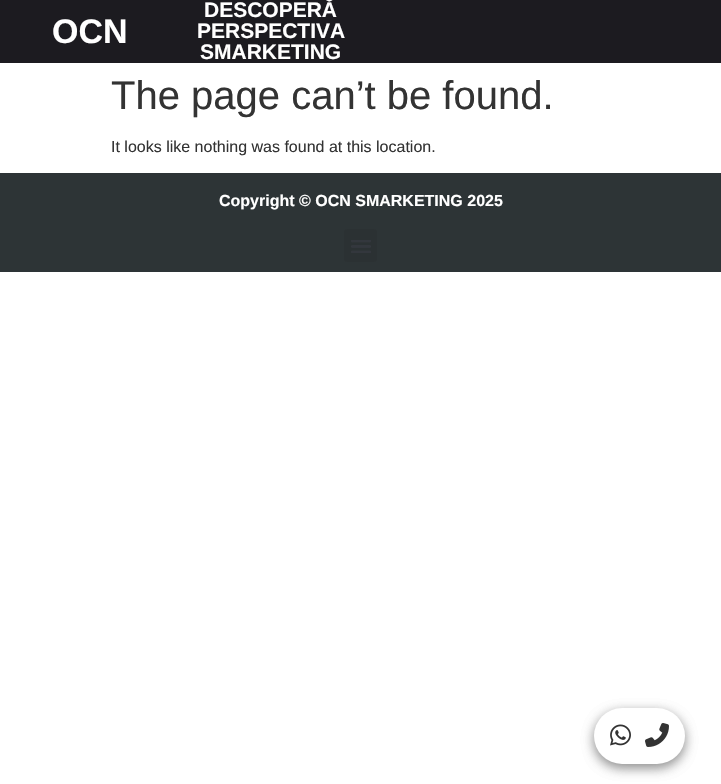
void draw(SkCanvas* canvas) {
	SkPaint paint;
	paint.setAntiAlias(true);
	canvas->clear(0xffffffff);
	paint.setColor(0xff1c1b20);
	canvas->drawRect(SkRect::MakeXYWH(0, 0, 721, 63), paint);
	SkFont f1(fontMgr->matchFamilyStyle("Liberation Sans", SkFontStyle::Bold()), 34);
	f1.setSubpixel(true);
	paint.setColor(0xffffffff);
	canvas->drawString("OCN", 52, 43, f1, paint);
	SkFont f2(fontMgr->matchFamilyStyle("Liberation Sans", SkFontStyle::Bold()), 21);
	f2.setSubpixel(true);
	canvas->drawString("DESCOPERĂ", 204, 17, f2, paint);
	canvas->drawString("PERSPECTIVA", 197, 38, f2, paint);
	canvas->drawString("SMARKETING", 200, 59, f2, paint);
	SkFont f3(fontMgr->matchFamilyStyle("Liberation Sans", SkFontStyle::Normal()), 40);
	f3.setSubpixel(true);
	paint.setColor(0xff333333);
	canvas->drawString("The page can’t be found.", 111, 109, f3, paint);
	SkFont f4(fontMgr->matchFamilyStyle("Liberation Sans", SkFontStyle::Normal()), 16);
	f4.setSubpixel(true);
	canvas->drawString("It looks like nothing was found at this location.", 111, 152, f4, paint);
	paint.setColor(0xff2d3436);
	canvas->drawRect(SkRect::MakeXYWH(0, 173, 721, 99), paint);
	SkFont f5(fontMgr->matchFamilyStyle("Liberation Sans", SkFontStyle::Bold()), 16);
	f5.setSubpixel(true);
	paint.setColor(0xffffffff);
	canvas->drawString("Copyright © OCN SMARKETING 2025", 219, 206, f5, paint);
	paint.setColor(0x40000000);
	paint.setMaskFilter(SkMaskFilter::MakeBlur(kNormal_SkBlurStyle, 6));
	canvas->drawRoundRect(SkRect::MakeXYWH(594, 712, 91, 56), 28, 28, paint);
	paint.setMaskFilter(nullptr);
	paint.setColor(0xff2b3133);
	canvas->drawRoundRect(SkRect::MakeXYWH(344, 229, 33, 33), 3, 3, paint);
	canvas->drawImageRect(SkImages::DeferredFromEncodedData(SkData::MakeFromFileName("img1.png")), SkRect::MakeXYWH(351, 240, 20, 13), SkSamplingOptions());
	paint.setColor(0x40000000);
	paint.setMaskFilter(SkMaskFilter::MakeBlur(kNormal_SkBlurStyle, 6));
	canvas->drawRoundRect(SkRect::MakeXYWH(594, 712, 91, 56), 28, 28, paint);
	paint.setMaskFilter(nullptr);
	paint.setColor(0xffffffff);
	canvas->drawRoundRect(SkRect::MakeXYWH(594, 708, 91, 56), 28, 28, paint);
	canvas->drawImageRect(SkImages::DeferredFromEncodedData(SkData::MakeFromFileName("img2.png")), SkRect::MakeXYWH(610, 724, 21, 22), SkSamplingOptions());
	canvas->drawImageRect(SkImages::DeferredFromEncodedData(SkData::MakeFromFileName("img3.png")), SkRect::MakeXYWH(645, 723, 24, 24), SkSamplingOptions());
}
